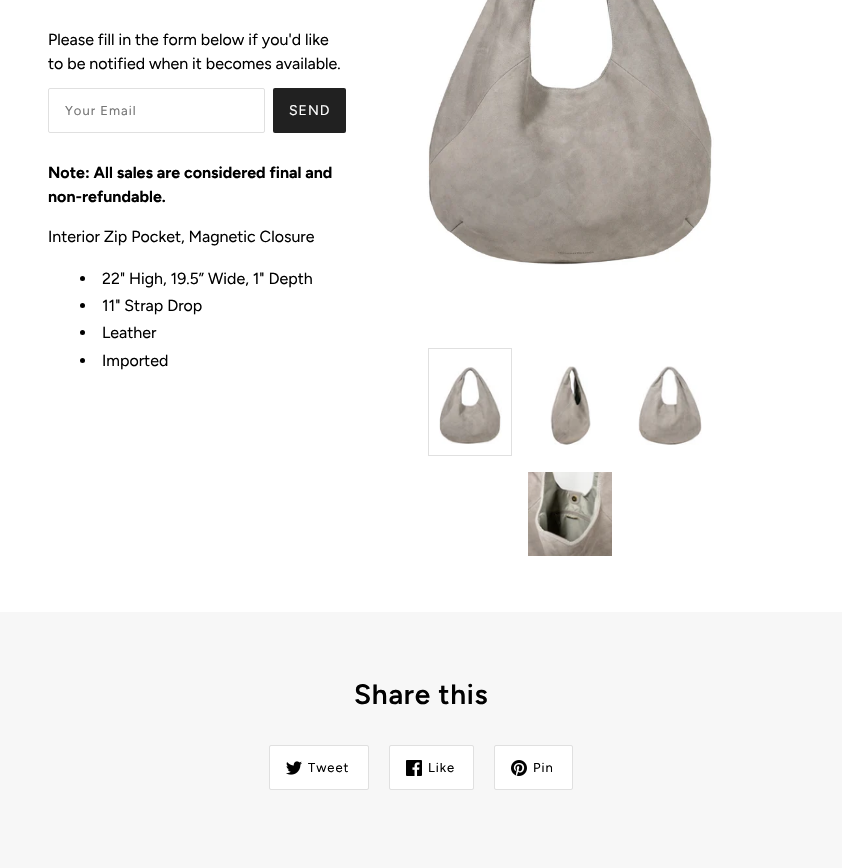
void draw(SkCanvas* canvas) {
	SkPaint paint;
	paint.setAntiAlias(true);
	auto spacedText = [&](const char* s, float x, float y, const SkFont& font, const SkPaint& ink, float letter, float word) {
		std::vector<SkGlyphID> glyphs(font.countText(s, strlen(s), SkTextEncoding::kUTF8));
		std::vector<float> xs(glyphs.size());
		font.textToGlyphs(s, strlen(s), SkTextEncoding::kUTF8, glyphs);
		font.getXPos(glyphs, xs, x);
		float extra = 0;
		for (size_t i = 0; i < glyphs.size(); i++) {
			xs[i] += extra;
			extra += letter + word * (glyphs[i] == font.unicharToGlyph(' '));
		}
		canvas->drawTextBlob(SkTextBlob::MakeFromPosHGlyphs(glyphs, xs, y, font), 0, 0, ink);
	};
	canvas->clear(0xffffffff);
	SkFont f1(fontMgr->matchFamilyStyle("Figtree", SkFontStyle::Normal()), 16);
	f1.setSubpixel(true);
	paint.setColor(0xff000000);
	canvas->drawString("Please fill in the form below if you'd like", 48, 45, f1, paint);
	canvas->drawString("to be notified when it becomes available.", 48, 69, f1, paint);
	paint.setStroke(true);
	paint.setStrokeWidth(1);
	paint.setColor(0xffe0e0e0);
	canvas->drawRoundRect(SkRect::MakeXYWH(48.5, 88.5, 216, 44), 1.5, 1.5, paint);
	SkFont f2(fontMgr->matchFamilyStyle("Figtree", SkFontStyle::Normal()), 13);
	f2.setSubpixel(true);
	paint.setStroke(false);
	paint.setColor(0xff757575);
	spacedText("Your Email", 65, 115, f2, paint, 1, 0);
	paint.setColor(0xff212121);
	canvas->drawRoundRect(SkRect::MakeXYWH(273, 88, 73, 45), 2, 2, paint);
	SkFont f3(fontMgr->matchFamilyStyle("Figtree", SkFontStyle::Normal()), 14);
	f3.setSubpixel(true);
	paint.setColor(0xffffffff);
	spacedText("SEND", 289, 115, f3, paint, 1, 0);
	canvas->drawImageRect(SkImages::DeferredFromEncodedData(SkData::MakeFromFileName("img1.png")), SkRect::MakeXYWH(427, 0, 287, 265), SkSamplingOptions());
	paint.setStroke(true);
	paint.setColor(0xffe0e0e0);
	canvas->drawRect(SkRect::MakeXYWH(428.5, 348.5, 83, 107), paint);
	canvas->drawImageRect(SkImages::DeferredFromEncodedData(SkData::MakeFromFileName("img2.png")), SkRect::MakeXYWH(439, 367, 63, 77), SkSamplingOptions());
	canvas->drawImageRect(SkImages::DeferredFromEncodedData(SkData::MakeFromFileName("img3.png")), SkRect::MakeXYWH(550, 366, 41, 79), SkSamplingOptions());
	canvas->drawImageRect(SkImages::DeferredFromEncodedData(SkData::MakeFromFileName("img4.png")), SkRect::MakeXYWH(638, 366, 64, 79), SkSamplingOptions());
	canvas->drawImageRect(SkImages::DeferredFromEncodedData(SkData::MakeFromFileName("img5.png")), SkRect::MakeXYWH(528, 472, 84, 84), SkSamplingOptions());
	SkFont f4(fontMgr->matchFamilyStyle("Figtree", SkFontStyle::Bold()), 16);
	f4.setSubpixel(true);
	paint.setStroke(false);
	paint.setColor(0xff000000);
	canvas->drawString("Note: All sales are considered final and", 48, 178, f4, paint);
	canvas->drawString("non-refundable.", 48, 202, f4, paint);
	canvas->drawString("Interior Zip Pocket, Magnetic Closure", 48, 242, f1, paint);
	canvas->drawCircle(82.5, 278.5, 2.5, paint);
	canvas->drawString("22\" High, 19.5” Wide, 1\" Depth", 102, 284, f1, paint);
	canvas->drawCircle(82.5, 305.5, 2.5, paint);
	canvas->drawString("11\" Strap Drop", 102, 311, f1, paint);
	canvas->drawCircle(82.5, 332.5, 2.5, paint);
	canvas->drawString("Leather", 102, 338, f1, paint);
	canvas->drawCircle(82.5, 360.5, 2.5, paint);
	canvas->drawString("Imported", 102, 366, f1, paint);
	paint.setColor(0xfff7f7f7);
	canvas->drawRect(SkRect::MakeXYWH(0, 612, 842, 256), paint);
	SkFont f5(fontMgr->matchFamilyStyle("Figtree", SkFontStyle(600, SkFontStyle::kNormal_Width, SkFontStyle::kUpright_Slant)), 28);
	f5.setSubpixel(true);
	paint.setColor(0xff000000);
	spacedText("Share this", 354, 704, f5, paint, 0.75, 0);
	paint.setColor(0xffffffff);
	canvas->drawRoundRect(SkRect::MakeXYWH(269.5, 745.5, 99, 44), 1.5, 1.5, paint);
	paint.setStroke(true);
	paint.setColor(0xffe0e0e0);
	canvas->drawRoundRect(SkRect::MakeXYWH(269.5, 745.5, 99, 44), 1.5, 1.5, paint);
	canvas->drawImageRect(SkImages::DeferredFromEncodedData(SkData::MakeFromFileName("img6.png")), SkRect::MakeXYWH(286, 761, 16, 14), SkSamplingOptions());
	paint.setStroke(false);
	paint.setColor(0xff000000);
	spacedText("Tweet", 308, 772, f2, paint, 1, 0);
	paint.setColor(0xffffffff);
	canvas->drawRoundRect(SkRect::MakeXYWH(389.5, 745.5, 84, 44), 1.5, 1.5, paint);
	paint.setStroke(true);
	paint.setColor(0xffe0e0e0);
	canvas->drawRoundRect(SkRect::MakeXYWH(389.5, 745.5, 84, 44), 1.5, 1.5, paint);
	canvas->drawImageRect(SkImages::DeferredFromEncodedData(SkData::MakeFromFileName("img7.png")), SkRect::MakeXYWH(406, 760, 16, 16), SkSamplingOptions());
	paint.setStroke(false);
	paint.setColor(0xff000000);
	spacedText("Like", 428, 772, f2, paint, 1, 0);
	paint.setColor(0xffffffff);
	canvas->drawRoundRect(SkRect::MakeXYWH(494.5, 745.5, 78, 44), 1.5, 1.5, paint);
	paint.setStroke(true);
	paint.setColor(0xffe0e0e0);
	canvas->drawRoundRect(SkRect::MakeXYWH(494.5, 745.5, 78, 44), 1.5, 1.5, paint);
	canvas->drawImageRect(SkImages::DeferredFromEncodedData(SkData::MakeFromFileName("img8.png")), SkRect::MakeXYWH(511, 760, 16, 16), SkSamplingOptions());
	paint.setStroke(false);
	paint.setColor(0xff000000);
	spacedText("Pin", 533, 772, f2, paint, 1, 0);
}
